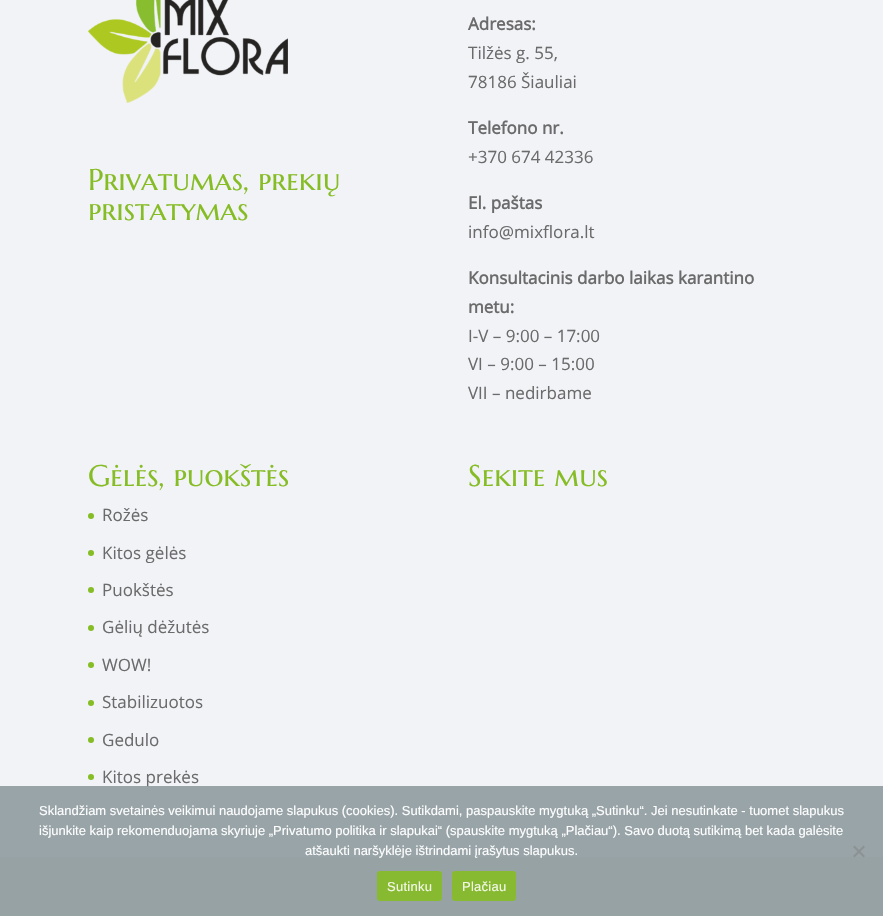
void draw(SkCanvas* canvas) {
	SkPaint paint;
	paint.setAntiAlias(true);
	auto spacedText = [&](const char* s, float x, float y, const SkFont& font, const SkPaint& ink, float letter, float word) {
		std::vector<SkGlyphID> glyphs(font.countText(s, strlen(s), SkTextEncoding::kUTF8));
		std::vector<float> xs(glyphs.size());
		font.textToGlyphs(s, strlen(s), SkTextEncoding::kUTF8, glyphs);
		font.getXPos(glyphs, xs, x);
		float extra = 0;
		for (size_t i = 0; i < glyphs.size(); i++) {
			xs[i] += extra;
			extra += letter + word * (glyphs[i] == font.unicharToGlyph(' '));
		}
		canvas->drawTextBlob(SkTextBlob::MakeFromPosHGlyphs(glyphs, xs, y, font), 0, 0, ink);
	};
	auto svgPath = [&](const char* data, bool evenOdd = false) {
		SkPath result = *SkParsePath::FromSVGString(data);
		if (evenOdd) result.setFillType(SkPathFillType::kEvenOdd);
		return result;
	};
	canvas->clear(0xfff1f3f7);
	canvas->drawImageRect(SkImages::DeferredFromEncodedData(SkData::MakeFromFileName("img1.png")), SkRect::MakeXYWH(88, 0, 200, 103), SkSamplingOptions());
	SkFont f1(fontMgr->matchFamilyStyle("Marcellus SC", SkFontStyle::Normal()), 30);
	f1.setSubpixel(true);
	paint.setColor(0xff86bc24);
	canvas->drawString("Privatumas, prekių", 88, 190, f1, paint);
	canvas->drawString("pristatymas", 88, 220, f1, paint);
	SkFont f2(fontMgr->matchFamilyStyle("Open Sans", SkFontStyle::Bold()), 17);
	f2.setSubpixel(true);
	paint.setColor(0xff6b6b6b);
	canvas->drawString("Adresas:", 468, 30, f2, paint);
	SkFont f3(fontMgr->matchFamilyStyle("Open Sans", SkFontStyle::Normal()), 17);
	f3.setSubpixel(true);
	canvas->drawString("Tilžės g. 55,", 468, 59, f3, paint);
	canvas->drawString("78186 Šiauliai", 468, 88, f3, paint);
	canvas->drawString("Telefono nr.", 468, 134, f2, paint);
	canvas->drawString("+370 674 42336", 468, 163, f3, paint);
	canvas->drawString("El. paštas", 468, 209, f2, paint);
	canvas->drawString("info@mixflora.lt", 468, 238, f3, paint);
	canvas->drawString("Konsultacinis darbo laikas karantino", 468, 284, f2, paint);
	canvas->drawString("metu:", 468, 313, f2, paint);
	canvas->drawString("I-V – 9:00 – 17:00", 468, 342, f3, paint);
	canvas->drawString("VI – 9:00 – 15:00", 468, 370, f3, paint);
	canvas->drawString("VII – nedirbame", 468, 399, f3, paint);
	paint.setColor(0xff86bc24);
	canvas->drawString("Gėlės, puokštės", 88, 486, f1, paint);
	canvas->drawCircle(91, 516, 3, paint);
	paint.setColor(0xff6b6b6b);
	canvas->drawString("Rožės", 102, 521, f3, paint);
	paint.setColor(0xff86bc24);
	canvas->drawCircle(91, 553, 3, paint);
	paint.setColor(0xff6b6b6b);
	canvas->drawString("Kitos gėlės", 102, 559, f3, paint);
	paint.setColor(0xff86bc24);
	canvas->drawCircle(91, 590, 3, paint);
	paint.setColor(0xff6b6b6b);
	canvas->drawString("Puokštės", 102, 596, f3, paint);
	paint.setColor(0xff86bc24);
	canvas->drawCircle(91, 628, 3, paint);
	paint.setColor(0xff6b6b6b);
	canvas->drawString("Gėlių dėžutės", 102, 633, f3, paint);
	paint.setColor(0xff86bc24);
	canvas->drawCircle(91, 665, 3, paint);
	paint.setColor(0xff6b6b6b);
	canvas->drawString("WOW!", 102, 671, f3, paint);
	paint.setColor(0xff86bc24);
	canvas->drawCircle(91, 703, 3, paint);
	paint.setColor(0xff6b6b6b);
	canvas->drawString("Stabilizuotos", 102, 708, f3, paint);
	paint.setColor(0xff86bc24);
	canvas->drawCircle(91, 740, 3, paint);
	paint.setColor(0xff6b6b6b);
	canvas->drawString("Gedulo", 102, 746, f3, paint);
	paint.setColor(0xff86bc24);
	canvas->drawCircle(91, 777, 3, paint);
	paint.setColor(0xff6b6b6b);
	canvas->drawString("Kitos prekės", 102, 783, f3, paint);
	paint.setColor(0xff86bc24);
	canvas->drawString("Sekite mus", 468, 486, f1, paint);
	paint.setColor(0xffdbdde1);
	canvas->drawRect(SkRect::MakeXYWH(0, 857, 883, 59), paint);
	paint.setColor(0xe68f9b9e);
	canvas->drawRect(SkRect::MakeXYWH(0, 786, 883, 130), paint);
	SkFont f4(fontMgr->matchFamilyStyle("Liberation Sans", SkFontStyle::Normal()), 13);
	f4.setSubpixel(true);
	paint.setColor(0xffffffff);
	canvas->drawString("Sklandžiam svetainės veikimui naudojame slapukus (cookies). Sutikdami, paspauskite mygtuką „Sutinku“. Jei nesutinkate - tuomet slapukus", 39, 815, f4, paint);
	canvas->drawString("išjunkite kaip rekomenduojama skyriuje „Privatumo politika ir slapukai“ (spauskite mygtuką „Plačiau“). Savo duotą sutikimą bet kada galėsite", 39, 835, f4, paint);
	canvas->drawString("atšaukti naršyklėje ištrindami įrašytus slapukus.", 305, 855, f4, paint);
	paint.setColor(0xff8c9293);
	canvas->drawPath(svgPath("M863.5 845.5L865 847L854.5 857.5L853 856Z"), paint);
	canvas->drawPath(svgPath("M853 847L854.5 845.5L865 856L863.5 857.5Z"), paint);
	paint.setColor(0xe686bc24);
	canvas->drawRoundRect(SkRect::MakeXYWH(377, 871, 65, 30), 3, 3, paint);
	paint.setColor(0xfff3f8ea);
	spacedText("Sutinku", 387, 891, f4, paint, 0.25, 0);
	paint.setColor(0xe686bc24);
	canvas->drawRoundRect(SkRect::MakeXYWH(452, 871, 64, 30), 3, 3, paint);
	paint.setColor(0xfff3f8ea);
	spacedText("Plačiau", 462, 891, f4, paint, 0.25, 0);
}
